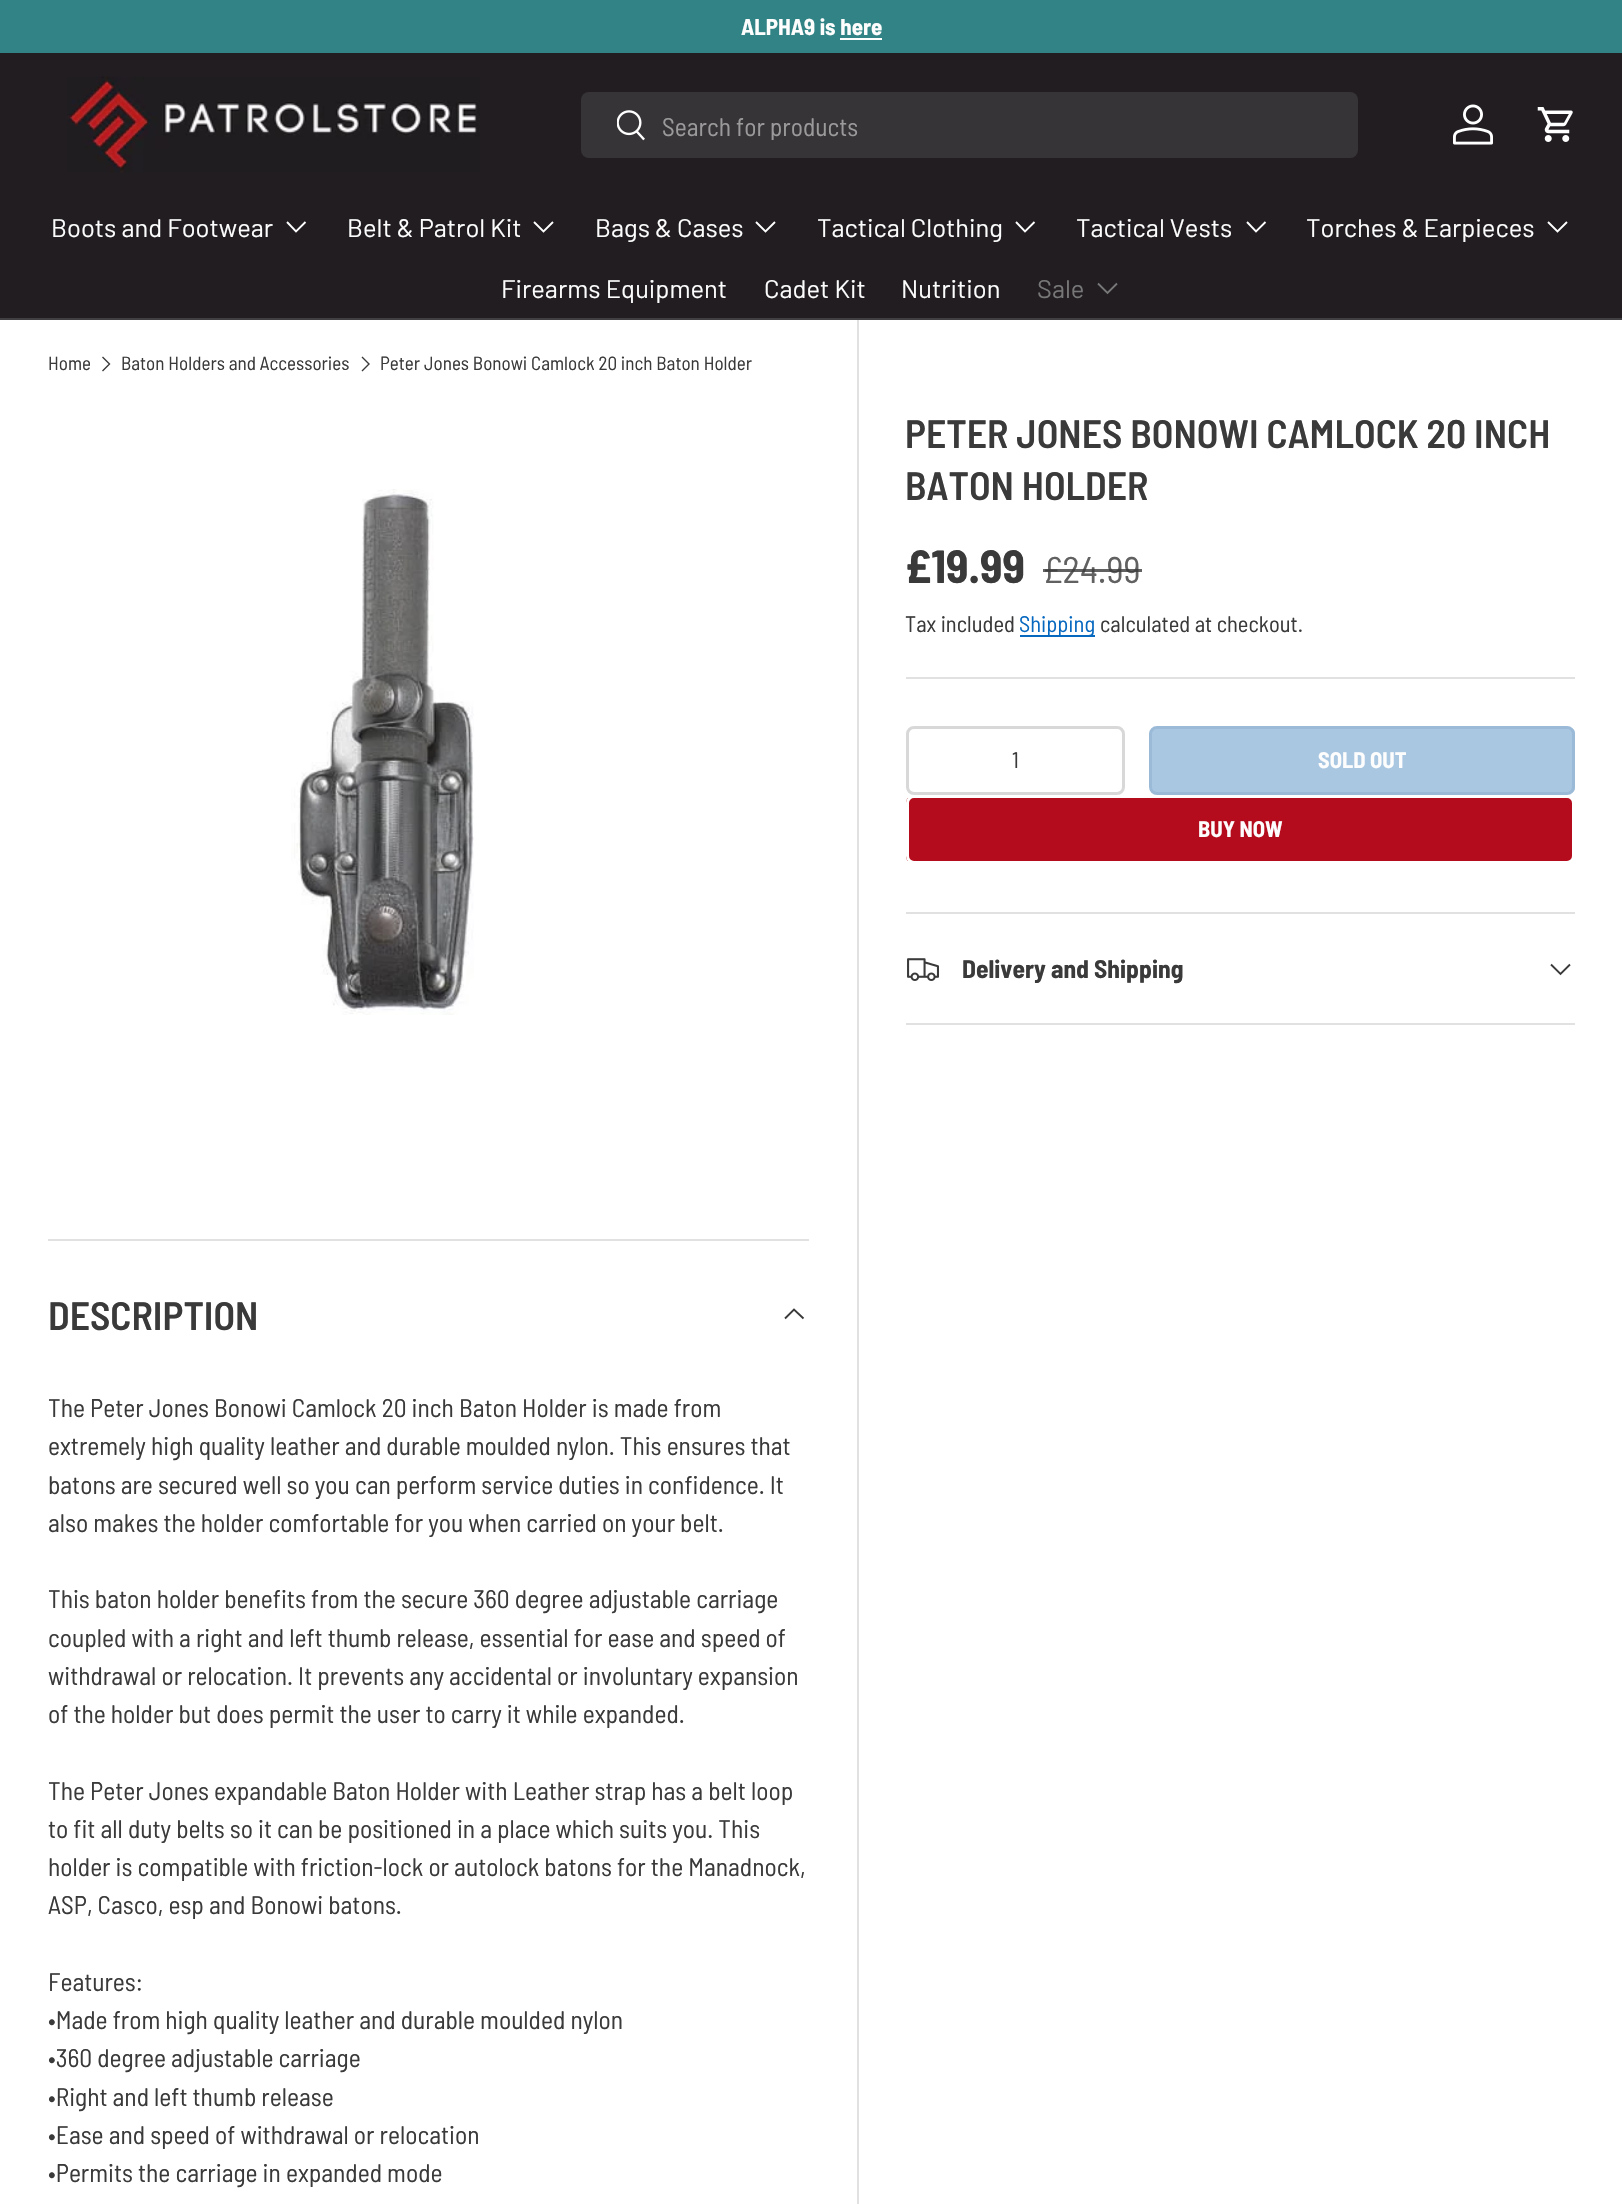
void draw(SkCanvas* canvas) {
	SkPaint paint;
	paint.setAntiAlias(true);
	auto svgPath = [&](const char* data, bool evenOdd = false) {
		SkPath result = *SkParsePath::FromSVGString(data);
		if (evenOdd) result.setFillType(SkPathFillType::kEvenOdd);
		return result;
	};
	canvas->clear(0xffffffff);
	paint.setColor(0xff318385);
	canvas->drawRect(SkRect::MakeXYWH(0, 0, 1622, 53), paint);
	SkFont f1(fontMgr->matchFamilyStyle("Barlow Semi Condensed", SkFontStyle::Bold()), 23);
	f1.setSubpixel(true);
	paint.setColor(0xfffdfdfd);
	canvas->drawString("ALPHA9 is here", 741, 35, f1, paint);
	paint.setColor(0xffffffff);
	canvas->drawRect(SkRect::MakeXYWH(840, 38, 42, 2), paint);
	paint.setColor(0xff211d21);
	canvas->drawRect(SkRect::MakeXYWH(0, 53, 1622, 265), paint);
	paint.setColor(0xff423f42);
	canvas->drawRect(SkRect::MakeXYWH(0, 318, 1622, 2), paint);
	canvas->drawImageRect(SkImages::DeferredFromEncodedData(SkData::MakeFromFileName("img1.png")), SkRect::MakeXYWH(67, 76, 413, 97), SkSamplingOptions());
	paint.setColor(0xff373437);
	canvas->drawRoundRect(SkRect::MakeXYWH(581, 92, 777, 66), 8, 8, paint);
	canvas->drawImageRect(SkImages::DeferredFromEncodedData(SkData::MakeFromFileName("img2.png")), SkRect::MakeXYWH(617, 110, 28, 31), SkSamplingOptions());
	canvas->save();
	canvas->clipRect(SkRect::MakeXYWH(662, 110, 553, 30));
	SkFont f2(fontMgr->matchFamilyStyle("Barlow Semi Condensed", SkFontStyle::Normal()), 25.5);
	f2.setSubpixel(true);
	paint.setColor(0xff9b9a9b);
	canvas->drawString("Search for products", 662, 136, f2, paint);
	canvas->restore();
	canvas->drawImageRect(SkImages::DeferredFromEncodedData(SkData::MakeFromFileName("img3.png")), SkRect::MakeXYWH(1453, 104, 40, 41), SkSamplingOptions());
	canvas->drawImageRect(SkImages::DeferredFromEncodedData(SkData::MakeFromFileName("img4.png")), SkRect::MakeXYWH(1537, 107, 36, 35), SkSamplingOptions());
	SkFont f3(fontMgr->matchFamilyStyle("Barlow", SkFontStyle::Normal()), 25.5);
	f3.setSubpixel(true);
	paint.setColor(0xfffdfdfd);
	canvas->drawString("Boots and Footwear", 51, 237, f3, paint);
	paint.setStroke(true);
	paint.setStrokeWidth(1.9);
	paint.setColor(0xffffffff);
	canvas->drawPath(svgPath("M305.5 222L296 231.5L287 222"), paint);
	paint.setStroke(false);
	paint.setColor(0xfffdfdfd);
	canvas->drawString("Belt & Patrol Kit", 347, 237, f3, paint);
	paint.setStroke(true);
	paint.setColor(0xffffffff);
	canvas->drawPath(svgPath("M553 222L543.5 231.5L534 222"), paint);
	paint.setStroke(false);
	paint.setColor(0xfffdfdfd);
	canvas->drawString("Bags & Cases", 595, 237, f3, paint);
	paint.setStroke(true);
	paint.setColor(0xffffffff);
	canvas->drawPath(svgPath("M775 222L765.5 231.5L756 222"), paint);
	paint.setStroke(false);
	paint.setColor(0xfffdfdfd);
	canvas->drawString("Tactical Clothing", 817, 237, f3, paint);
	paint.setStroke(true);
	paint.setColor(0xffffffff);
	canvas->drawPath(svgPath("M1034.5 222L1025 231.5L1016 222"), paint);
	paint.setStroke(false);
	paint.setColor(0xfffdfdfd);
	canvas->drawString("Tactical Vests", 1076, 237, f3, paint);
	paint.setStroke(true);
	paint.setColor(0xffffffff);
	canvas->drawPath(svgPath("M1265.5 222L1256 231.5L1247 222"), paint);
	paint.setStroke(false);
	paint.setColor(0xfffdfdfd);
	canvas->drawString("Torches & Earpieces", 1306, 237, f3, paint);
	paint.setStroke(true);
	paint.setColor(0xffffffff);
	canvas->drawPath(svgPath("M1567 222L1557.5 231.5L1548 222"), paint);
	paint.setStroke(false);
	paint.setColor(0xfffdfdfd);
	canvas->drawString("Firearms Equipment", 501, 298, f3, paint);
	canvas->drawString("Cadet Kit", 764, 298, f3, paint);
	canvas->drawString("Nutrition", 901, 298, f3, paint);
	paint.setColor(0xff777777);
	canvas->drawString("Sale", 1037, 298, f3, paint);
	paint.setStroke(true);
	canvas->drawPath(svgPath("M1117 283.5L1107.5 293L1098 283.5"), paint);
	SkFont f4(fontMgr->matchFamilyStyle("Barlow Semi Condensed", SkFontStyle::Normal()), 19.1);
	f4.setSubpixel(true);
	paint.setStroke(false);
	paint.setColor(0xff3a3a3a);
	canvas->drawString("Home", 48, 370, f4, paint);
	paint.setStroke(true);
	paint.setStrokeWidth(1.4);
	canvas->drawPath(svgPath("M102.5 357L109.5 364L102.5 371"), paint);
	paint.setStroke(false);
	canvas->drawString("Baton Holders and Accessories", 121, 370, f4, paint);
	paint.setStroke(true);
	canvas->drawPath(svgPath("M362 357L369 364L362 371"), paint);
	paint.setStroke(false);
	canvas->drawString("Peter Jones Bonowi Camlock 20 inch Baton Holder", 380, 370, f4, paint);
	paint.setColor(0xffe1e1e1);
	canvas->drawRect(SkRect::MakeXYWH(857, 320, 2, 1884), paint);
	canvas->drawImageRect(SkImages::DeferredFromEncodedData(SkData::MakeFromFileName("img5.png")), SkRect::MakeXYWH(291, 489, 183, 526), SkSamplingOptions());
	SkFont f5(fontMgr->matchFamilyStyle("Barlow Semi Condensed", SkFontStyle(600, SkFontStyle::kNormal_Width, SkFontStyle::kUpright_Slant)), 39.7);
	f5.setSubpixel(true);
	paint.setColor(0xff3a3a3a);
	canvas->drawString("PETER JONES BONOWI CAMLOCK 20 INCH", 905, 448, f5, paint);
	canvas->drawString("BATON HOLDER", 905, 500, f5, paint);
	SkFont f6(fontMgr->matchFamilyStyle("Barlow Semi Condensed", SkFontStyle::Bold()), 46.5);
	f6.setSubpixel(true);
	canvas->drawString("£19.99", 905, 583, f6, paint);
	SkFont f7(fontMgr->matchFamilyStyle("Barlow Semi Condensed", SkFontStyle::Normal()), 37);
	f7.setSubpixel(true);
	paint.setColor(0xff616161);
	canvas->drawString("£24.99", 1042, 583, f7, paint);
	paint.setColor(0xcc3a3a3a);
	canvas->drawRect(SkRect::MakeXYWH(1043, 569, 99, 3), paint);
	SkFont f8(fontMgr->matchFamilyStyle("Barlow Semi Condensed", SkFontStyle::Normal()), 22.5);
	f8.setSubpixel(true);
	paint.setColor(0xff3a3a3a);
	canvas->drawString("Tax included", 905, 632, f8, paint);
	paint.setColor(0xff0768c0);
	canvas->drawRect(SkRect::MakeXYWH(1020, 635, 75, 2), paint);
	canvas->drawString("Shipping", 1019, 632, f8, paint);
	paint.setColor(0xff3a3a3a);
	canvas->drawString("calculated at checkout.", 1100, 632, f8, paint);
	paint.setColor(0xffe1e1e1);
	canvas->drawRect(SkRect::MakeXYWH(906, 677, 669, 2), paint);
	paint.setStroke(true);
	paint.setStrokeWidth(3);
	paint.setColor(0xffd8d8d8);
	canvas->drawRoundRect(SkRect::MakeXYWH(907.5, 727.5, 216, 66), 6.5, 6.5, paint);
	paint.setStroke(false);
	paint.setColor(0xff3a3a3a);
	canvas->drawString("1", 1012, 768, f8, paint);
	canvas->save();
	canvas->clipPath(svgPath("M1157 726H1567C1571.5 726 1575 729.5 1575 734V787C1575 791.5 1571.5 795 1567 795H1157C1152.5 795 1149 791.5 1149 787V734C1149 729.5 1152.5 726 1157 726Z"), true);
	{
		const SkColor colors[] = {0xffaac7e2, 0xff9abad8, 0xff9abad8};
		const float stops[] = {0.6, 0.6, 1};
		const SkPoint ends[] = {{1181, 611}, {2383, 910}};
		paint.setShader(SkGradientShader::MakeLinear(ends, colors, stops, 3, SkTileMode::kClamp));
		paint.setAlpha(255);
	}
	canvas->drawRect(SkRect::MakeXYWH(1152, 729, 423, 63), paint);
	canvas->restore();
	paint.setStroke(true);
	paint.setShader(nullptr);
	paint.setColor(0xff9abad8);
	canvas->drawRoundRect(SkRect::MakeXYWH(1150.5, 727.5, 423, 66), 6.5, 6.5, paint);
	SkFont f9(fontMgr->matchFamilyStyle("Barlow Semi Condensed", SkFontStyle::Bold()), 22.5);
	f9.setSubpixel(true);
	paint.setStroke(false);
	paint.setColor(0xfffdfdfd);
	canvas->drawString("SOLD OUT", 1318, 768, f9, paint);
	canvas->save();
	canvas->clipPath(svgPath("M914 795H1567C1571.5 795 1575 798.5 1575 803V856C1575 860.5 1571.5 864 1567 864H914C909.5 864 906 860.5 906 856V803C906 798.5 909.5 795 914 795Z"), true);
	{
		const SkColor colors[] = {0x12ffffff, 0xffb40c1c, 0xffb40c1c};
		const float stops[] = {0.6, 0.6, 1};
		const SkPoint ends[] = {{-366, 594}, {1521, 1065}};
		paint.setShader(SkGradientShader::MakeLinear(ends, colors, stops, 3, SkTileMode::kClamp));
		paint.setAlpha(255);
	}
	canvas->drawRect(SkRect::MakeXYWH(906, 798, 666, 63), paint);
	canvas->restore();
	paint.setStroke(true);
	paint.setShader(nullptr);
	paint.setColor(0xffffffff);
	canvas->drawRoundRect(SkRect::MakeXYWH(907.5, 796.5, 666, 66), 6.5, 6.5, paint);
	paint.setStroke(false);
	paint.setColor(0xfffdfdfd);
	canvas->drawString("BUY NOW", 1198, 837, f9, paint);
	paint.setColor(0xffe1e1e1);
	canvas->drawRect(SkRect::MakeXYWH(906, 912, 669, 2), paint);
	canvas->drawRect(SkRect::MakeXYWH(906, 1023, 669, 2), paint);
	canvas->drawImageRect(SkImages::DeferredFromEncodedData(SkData::MakeFromFileName("img6.png")), SkRect::MakeXYWH(907, 958, 32, 23), SkSamplingOptions());
	SkFont f10(fontMgr->matchFamilyStyle("Barlow Semi Condensed", SkFontStyle::Bold()), 25.5);
	f10.setSubpixel(true);
	paint.setColor(0xff3a3a3a);
	canvas->drawString("Delivery and Shipping", 962, 978, f10, paint);
	paint.setStroke(true);
	paint.setStrokeWidth(1.9);
	canvas->drawPath(svgPath("M1570 964.5L1560.5 974L1551 964.5"), paint);
	paint.setStroke(false);
	paint.setColor(0xffe1e1e1);
	canvas->drawRect(SkRect::MakeXYWH(48, 1239, 761, 2), paint);
	paint.setColor(0xff3a3a3a);
	canvas->drawString("DESCRIPTION", 48, 1330, f5, paint);
	paint.setStroke(true);
	canvas->drawPath(svgPath("M803.5 1318.5L794 1309.5L785 1318.5"), paint);
	paint.setStroke(false);
	canvas->drawString("The Peter Jones Bonowi Camlock 20 inch Baton Holder is made from", 48, 1417, f2, paint);
	canvas->drawString("extremely high quality leather and durable moulded nylon. This ensures that", 48, 1455, f2, paint);
	canvas->drawString("batons are secured well so you can perform service duties in confidence. It", 48, 1494, f2, paint);
	canvas->drawString("also makes the holder comfortable for you when carried on your belt.", 48, 1532, f2, paint);
	canvas->drawString("This baton holder benefits from the secure 360 degree adjustable carriage", 48, 1608, f2, paint);
	canvas->drawString("coupled with a right and left thumb release, essential for ease and speed of", 48, 1647, f2, paint);
	canvas->drawString("withdrawal or relocation. It prevents any accidental or involuntary expansion", 48, 1685, f2, paint);
	canvas->drawString("of the holder but does permit the user to carry it while expanded.", 48, 1723, f2, paint);
	canvas->drawString("The Peter Jones expandable Baton Holder with Leather strap has a belt loop", 48, 1800, f2, paint);
	canvas->drawString("to fit all duty belts so it can be positioned in a place which suits you. This", 48, 1838, f2, paint);
	canvas->drawString("holder is compatible with friction-lock or autolock batons for the Manadnock,", 48, 1876, f2, paint);
	canvas->drawString("ASP, Casco, esp and Bonowi batons.", 48, 1914, f2, paint);
	canvas->drawString("Features:", 48, 1991, f2, paint);
	canvas->drawString("•Made from high quality leather and durable moulded nylon", 48, 2029, f2, paint);
	canvas->drawString("•360 degree adjustable carriage", 48, 2067, f2, paint);
	canvas->drawString("•Right and left thumb release", 48, 2106, f2, paint);
	canvas->drawString("•Ease and speed of withdrawal or relocation", 48, 2144, f2, paint);
	canvas->drawString("•Permits the carriage in expanded mode", 48, 2182, f2, paint);
}
